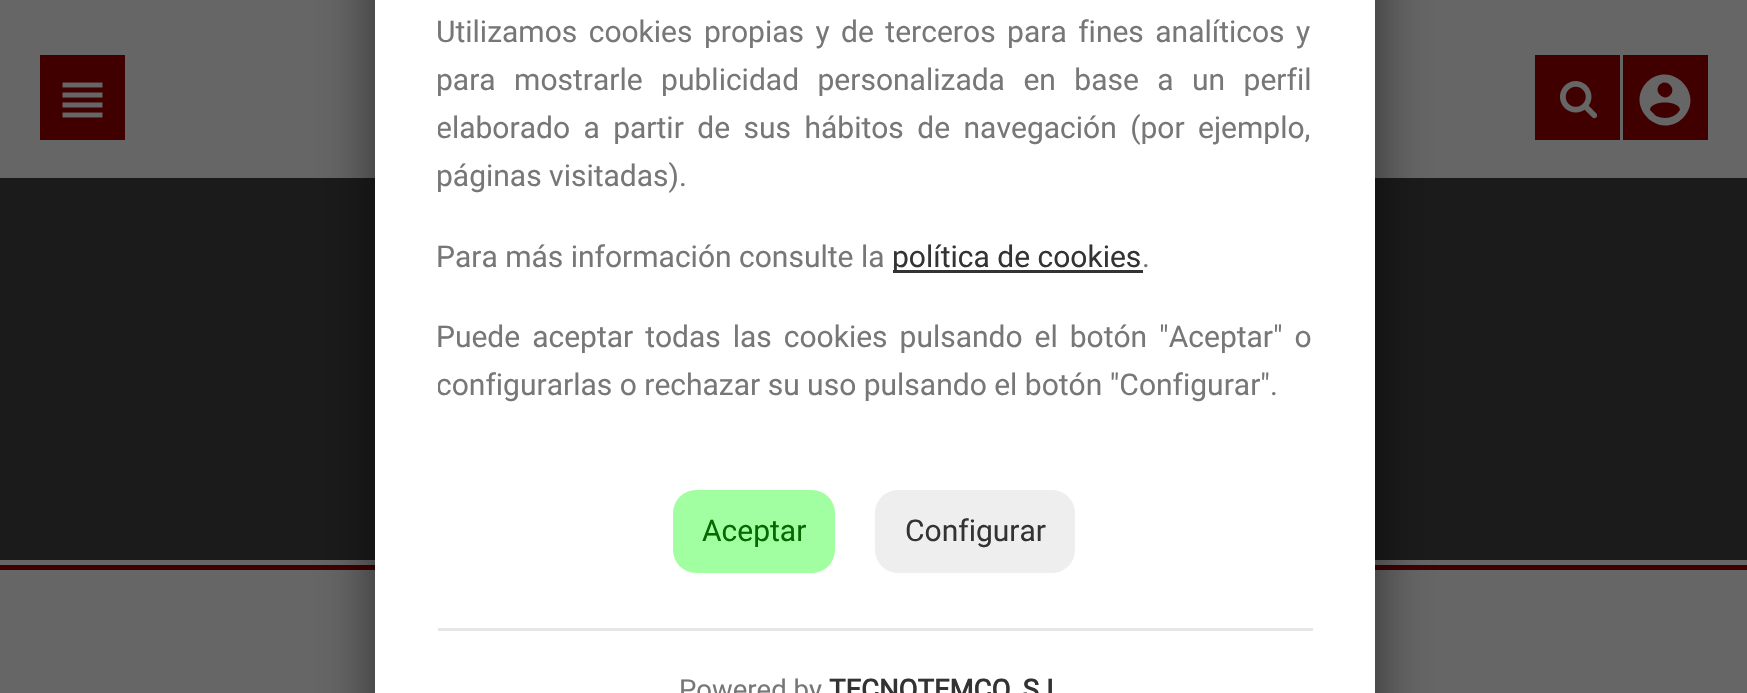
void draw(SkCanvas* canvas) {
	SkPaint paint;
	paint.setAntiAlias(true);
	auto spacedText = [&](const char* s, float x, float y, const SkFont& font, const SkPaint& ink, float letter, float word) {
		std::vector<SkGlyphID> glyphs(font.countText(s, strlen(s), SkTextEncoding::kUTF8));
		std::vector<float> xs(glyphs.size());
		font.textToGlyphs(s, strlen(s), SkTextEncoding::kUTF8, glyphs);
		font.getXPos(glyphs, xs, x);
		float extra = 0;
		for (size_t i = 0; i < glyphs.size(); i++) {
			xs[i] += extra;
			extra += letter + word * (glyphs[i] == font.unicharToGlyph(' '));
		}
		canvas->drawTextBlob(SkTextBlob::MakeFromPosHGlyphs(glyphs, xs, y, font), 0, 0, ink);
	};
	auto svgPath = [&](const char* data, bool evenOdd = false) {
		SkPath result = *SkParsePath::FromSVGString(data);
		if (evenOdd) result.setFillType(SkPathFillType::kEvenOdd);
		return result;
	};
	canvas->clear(0xff666666);
	paint.setColor(0xff1b1b1b);
	canvas->drawRect(SkRect::MakeXYWH(0, 178, 1747, 382), paint);
	paint.setColor(0xff400000);
	canvas->drawRect(SkRect::MakeXYWH(0, 565, 1747, 5), paint);
	paint.setColor(0x8a000000);
	paint.setMaskFilter(SkMaskFilter::MakeBlur(kNormal_SkBlurStyle, 27.5));
	canvas->drawRoundRect(SkRect::MakeXYWH(375, -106, 1000, 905), 23, 23, paint);
	paint.setMaskFilter(nullptr);
	paint.setColor(0xffffffff);
	canvas->drawRect(SkRect::MakeXYWH(375, 0, 1000, 693), paint);
	SkFont f1(fontMgr->matchFamilyStyle("Roboto", SkFontStyle::Normal()), 30);
	f1.setSubpixel(true);
	paint.setColor(0xff777777);
	spacedText("Utilizamos cookies propias y de terceros para fines analíticos y", 436, 42, f1, paint, 0, 4);
	spacedText("para mostrarle publicidad personalizada en base a un perfil", 436, 90, f1, paint, 0, 11);
	canvas->save();
	canvas->clipRect(SkRect::MakeXYWH(438, 10, 875, 563));
	spacedText("elaborado a partir de sus hábitos de navegación (por ejemplo,", 436, 138, f1, paint, 0, 6);
	canvas->restore();
	canvas->drawString("páginas visitadas).", 436, 186, f1, paint);
	canvas->drawString("Para más información consulte la", 436, 267, f1, paint);
	paint.setColor(0xff333333);
	canvas->drawRect(SkRect::MakeXYWH(893, 270, 250, 3), paint);
	canvas->drawString("política de cookies", 892, 267, f1, paint);
	paint.setColor(0xff777777);
	canvas->drawString(".", 1142, 267, f1, paint);
	spacedText("Puede aceptar todas las cookies pulsando el botón \"Aceptar\" o", 436, 347, f1, paint, 0, 4.5);
	canvas->save();
	canvas->clipRect(SkRect::MakeXYWH(438, 10, 875, 563));
	canvas->drawString("configurarlas o rechazar su uso pulsando el botón \"Configurar\".", 436, 395, f1, paint);
	canvas->restore();
	paint.setColor(0xffa1ffa1);
	canvas->drawRoundRect(SkRect::MakeXYWH(673, 490, 162, 83), 23, 23, paint);
	paint.setColor(0xff036900);
	canvas->drawString("Aceptar", 702, 541, f1, paint);
	paint.setColor(0xffeeeeee);
	canvas->drawRoundRect(SkRect::MakeXYWH(875, 490, 200, 83), 23, 23, paint);
	paint.setColor(0xff333333);
	canvas->drawString("Configurar", 905, 541, f1, paint);
	paint.setColor(0xffe6e6e6);
	canvas->drawRect(SkRect::MakeXYWH(438, 628, 875, 3), paint);
	SkFont f2(fontMgr->matchFamilyStyle("Roboto", SkFontStyle::Normal()), 27.5);
	f2.setSubpixel(true);
	paint.setColor(0xff777777);
	canvas->drawString("Powered by", 679, 699, f2, paint);
	SkFont f3(fontMgr->matchFamilyStyle("Roboto", SkFontStyle::Bold()), 27.5);
	f3.setSubpixel(true);
	paint.setColor(0xff333333);
	canvas->drawString("TECNOTEMCO, S.L", 829, 699, f3, paint);
	paint.setColor(0xff400000);
	canvas->drawRect(SkRect::MakeXYWH(40, 55, 85, 85), paint);
	canvas->drawImageRect(SkImages::DeferredFromEncodedData(SkData::MakeFromFileName("img1.png")), SkRect::MakeXYWH(62, 82, 41, 36), SkSamplingOptions());
	canvas->drawRect(SkRect::MakeXYWH(1535, 55, 85, 85), paint);
	canvas->drawImageRect(SkImages::DeferredFromEncodedData(SkData::MakeFromFileName("img2.png")), SkRect::MakeXYWH(1560, 81, 38, 38), SkSamplingOptions());
	canvas->drawRect(SkRect::MakeXYWH(1623, 55, 85, 85), paint);
	paint.setColor(0xff666666);
	canvas->drawPath(svgPath("M1647 82C1671 59 1706 94 1683 118C1659 141 1624 106 1647 82ZM1670 85C1663 78 1653 88 1660 95C1667 102 1677 92 1670 85ZM1656 116C1665 120 1675 118 1680 110C1680 100 1650 100 1650 110C1652 112 1654 114 1656 116Z"), paint);
}
